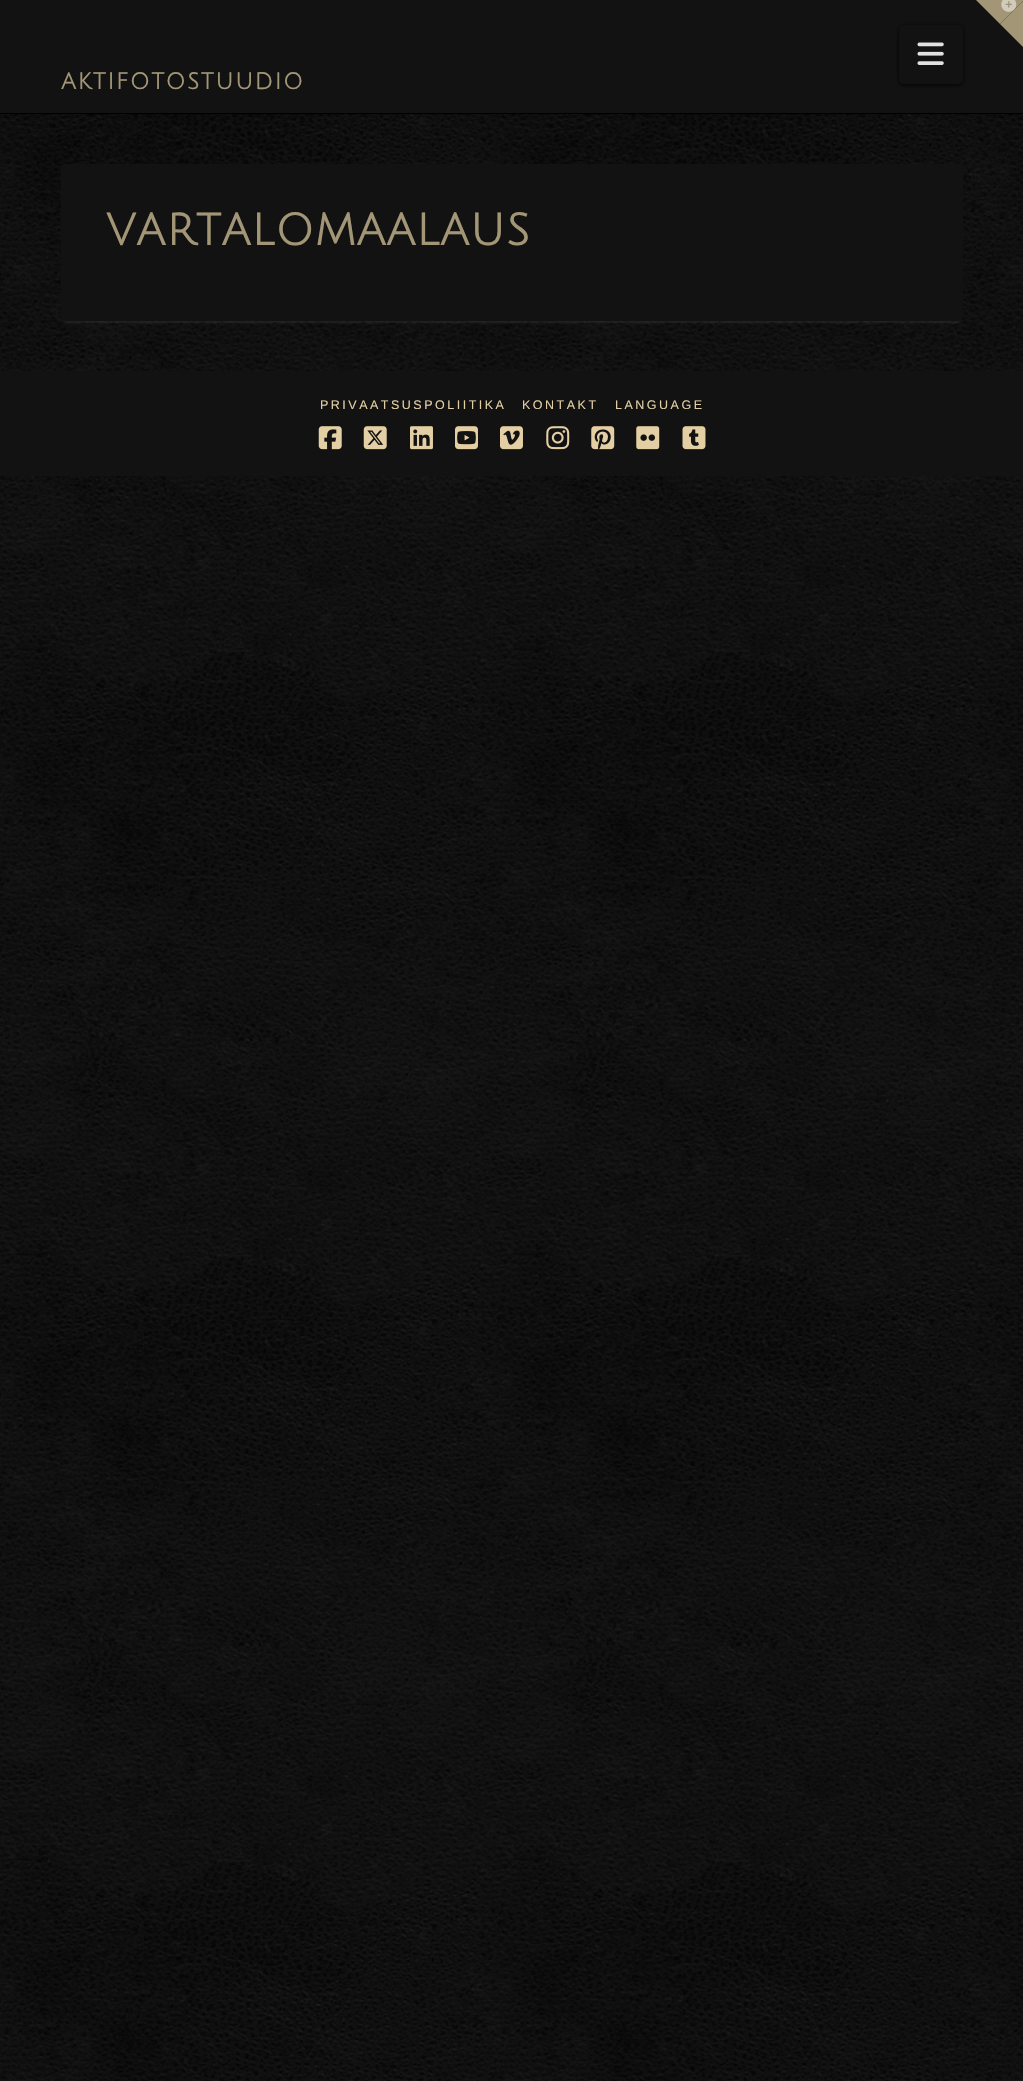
void draw(SkCanvas* canvas) {
	SkPaint paint;
	paint.setAntiAlias(true);
	auto spacedText = [&](const char* s, float x, float y, const SkFont& font, const SkPaint& ink, float letter, float word) {
		std::vector<SkGlyphID> glyphs(font.countText(s, strlen(s), SkTextEncoding::kUTF8));
		std::vector<float> xs(glyphs.size());
		font.textToGlyphs(s, strlen(s), SkTextEncoding::kUTF8, glyphs);
		font.getXPos(glyphs, xs, x);
		float extra = 0;
		for (size_t i = 0; i < glyphs.size(); i++) {
			xs[i] += extra;
			extra += letter + word * (glyphs[i] == font.unicharToGlyph(' '));
		}
		canvas->drawTextBlob(SkTextBlob::MakeFromPosHGlyphs(glyphs, xs, y, font), 0, 0, ink);
	};
	auto svgPath = [&](const char* data, bool evenOdd = false) {
		SkPath result = *SkParsePath::FromSVGString(data);
		if (evenOdd) result.setFillType(SkPathFillType::kEvenOdd);
		return result;
	};
	canvas->clear(0xffffffff);
	canvas->drawImageRect(SkImages::DeferredFromEncodedData(SkData::MakeFromFileName("img1.png")), SkRect::MakeXYWH(0, 114, 1023, 1967), SkSamplingOptions());
	paint.setColor(0x4a000000);
	paint.setMaskFilter(SkMaskFilter::MakeBlur(kNormal_SkBlurStyle, 2.5));
	canvas->drawRect(SkRect::MakeXYWH(3, 0, 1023, 114), paint);
	paint.setMaskFilter(nullptr);
	paint.setColor(0xff121212);
	canvas->drawRect(SkRect::MakeXYWH(0, 0, 1023, 113), paint);
	paint.setColor(0xffa39676);
	canvas->drawPath(svgPath("M976 0H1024L1000 24Z"), paint);
	canvas->drawPath(svgPath("M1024 0V48L1000 24Z"), paint);
	canvas->drawImageRect(SkImages::DeferredFromEncodedData(SkData::MakeFromFileName("img2.png")), SkRect::MakeXYWH(1001, 0, 16, 12), SkSamplingOptions());
	paint.setColor(0xff000000);
	canvas->drawRect(SkRect::MakeXYWH(0, 113, 1023, 1), paint);
	SkFont f1(fontMgr->matchFamilyStyle("Julius Sans One", SkFontStyle::Bold()), 22.5);
	f1.setSubpixel(true);
	paint.setColor(0xffa39676);
	spacedText("AKTIFOTOSTUUDIO", 61, 89, f1, paint, 1.5, 0);
	paint.setColor(0xff000000);
	paint.setMaskFilter(SkMaskFilter::MakeBlur(kNormal_SkBlurStyle, 2.5));
	canvas->drawRoundRect(SkRect::MakeXYWH(899, 26, 64, 59), 5, 5, paint);
	paint.setMaskFilter(nullptr);
	paint.setColor(0xff121212);
	canvas->drawRoundRect(SkRect::MakeXYWH(899, 25, 64, 59), 5, 5, paint);
	canvas->drawImageRect(SkImages::DeferredFromEncodedData(SkData::MakeFromFileName("img3.png")), SkRect::MakeXYWH(917, 42, 27, 23), SkSamplingOptions());
	paint.setColor(0x12ffffff);
	paint.setMaskFilter(SkMaskFilter::MakeBlur(kNormal_SkBlurStyle, 1));
	canvas->drawRoundRect(SkRect::MakeXYWH(64, 170, 896, 153), 2.5, 2.5, paint);
	paint.setMaskFilter(nullptr);
	paint.setColor(0xff121212);
	canvas->drawRoundRect(SkRect::MakeXYWH(61, 164, 902, 157), 5, 5, paint);
	SkFont f2(fontMgr->matchFamilyStyle("Julius Sans One", SkFontStyle::Bold()), 43.75);
	f2.setSubpixel(true);
	paint.setColor(0xffa39676);
	spacedText("VARTALOMAALAUS", 106, 245, f2, paint, 0.75, 0);
	paint.setColor(0xff121212);
	canvas->drawRect(SkRect::MakeXYWH(0, 371, 1023, 105), paint);
	SkFont f3(fontMgr->matchFamilyStyle("Liberation Sans", SkFontStyle::Normal()), 12.5);
	f3.setSubpixel(true);
	paint.setColor(0xffe4cfa4);
	spacedText("PRIVAATSUSPOLIITIKA", 320, 409, f3, paint, 2.5, 0);
	spacedText("KONTAKT", 522, 409, f3, paint, 2.5, 0);
	spacedText("LANGUAGE", 615, 409, f3, paint, 2.5, 0);
	canvas->drawImageRect(SkImages::DeferredFromEncodedData(SkData::MakeFromFileName("img4.png")), SkRect::MakeXYWH(318, 426, 24, 24), SkSamplingOptions());
	canvas->drawImageRect(SkImages::DeferredFromEncodedData(SkData::MakeFromFileName("img5.png")), SkRect::MakeXYWH(363, 426, 24, 24), SkSamplingOptions());
	canvas->drawImageRect(SkImages::DeferredFromEncodedData(SkData::MakeFromFileName("img6.png")), SkRect::MakeXYWH(410, 426, 23, 24), SkSamplingOptions());
	canvas->drawImageRect(SkImages::DeferredFromEncodedData(SkData::MakeFromFileName("img7.png")), SkRect::MakeXYWH(455, 426, 23, 24), SkSamplingOptions());
	canvas->drawImageRect(SkImages::DeferredFromEncodedData(SkData::MakeFromFileName("img8.png")), SkRect::MakeXYWH(500, 426, 23, 24), SkSamplingOptions());
	canvas->drawImageRect(SkImages::DeferredFromEncodedData(SkData::MakeFromFileName("img9.png")), SkRect::MakeXYWH(546, 426, 24, 24), SkSamplingOptions());
	canvas->drawImageRect(SkImages::DeferredFromEncodedData(SkData::MakeFromFileName("img10.png")), SkRect::MakeXYWH(591, 426, 24, 24), SkSamplingOptions());
	canvas->drawImageRect(SkImages::DeferredFromEncodedData(SkData::MakeFromFileName("img11.png")), SkRect::MakeXYWH(636, 426, 24, 24), SkSamplingOptions());
	canvas->drawImageRect(SkImages::DeferredFromEncodedData(SkData::MakeFromFileName("img12.png")), SkRect::MakeXYWH(682, 426, 24, 24), SkSamplingOptions());
}
